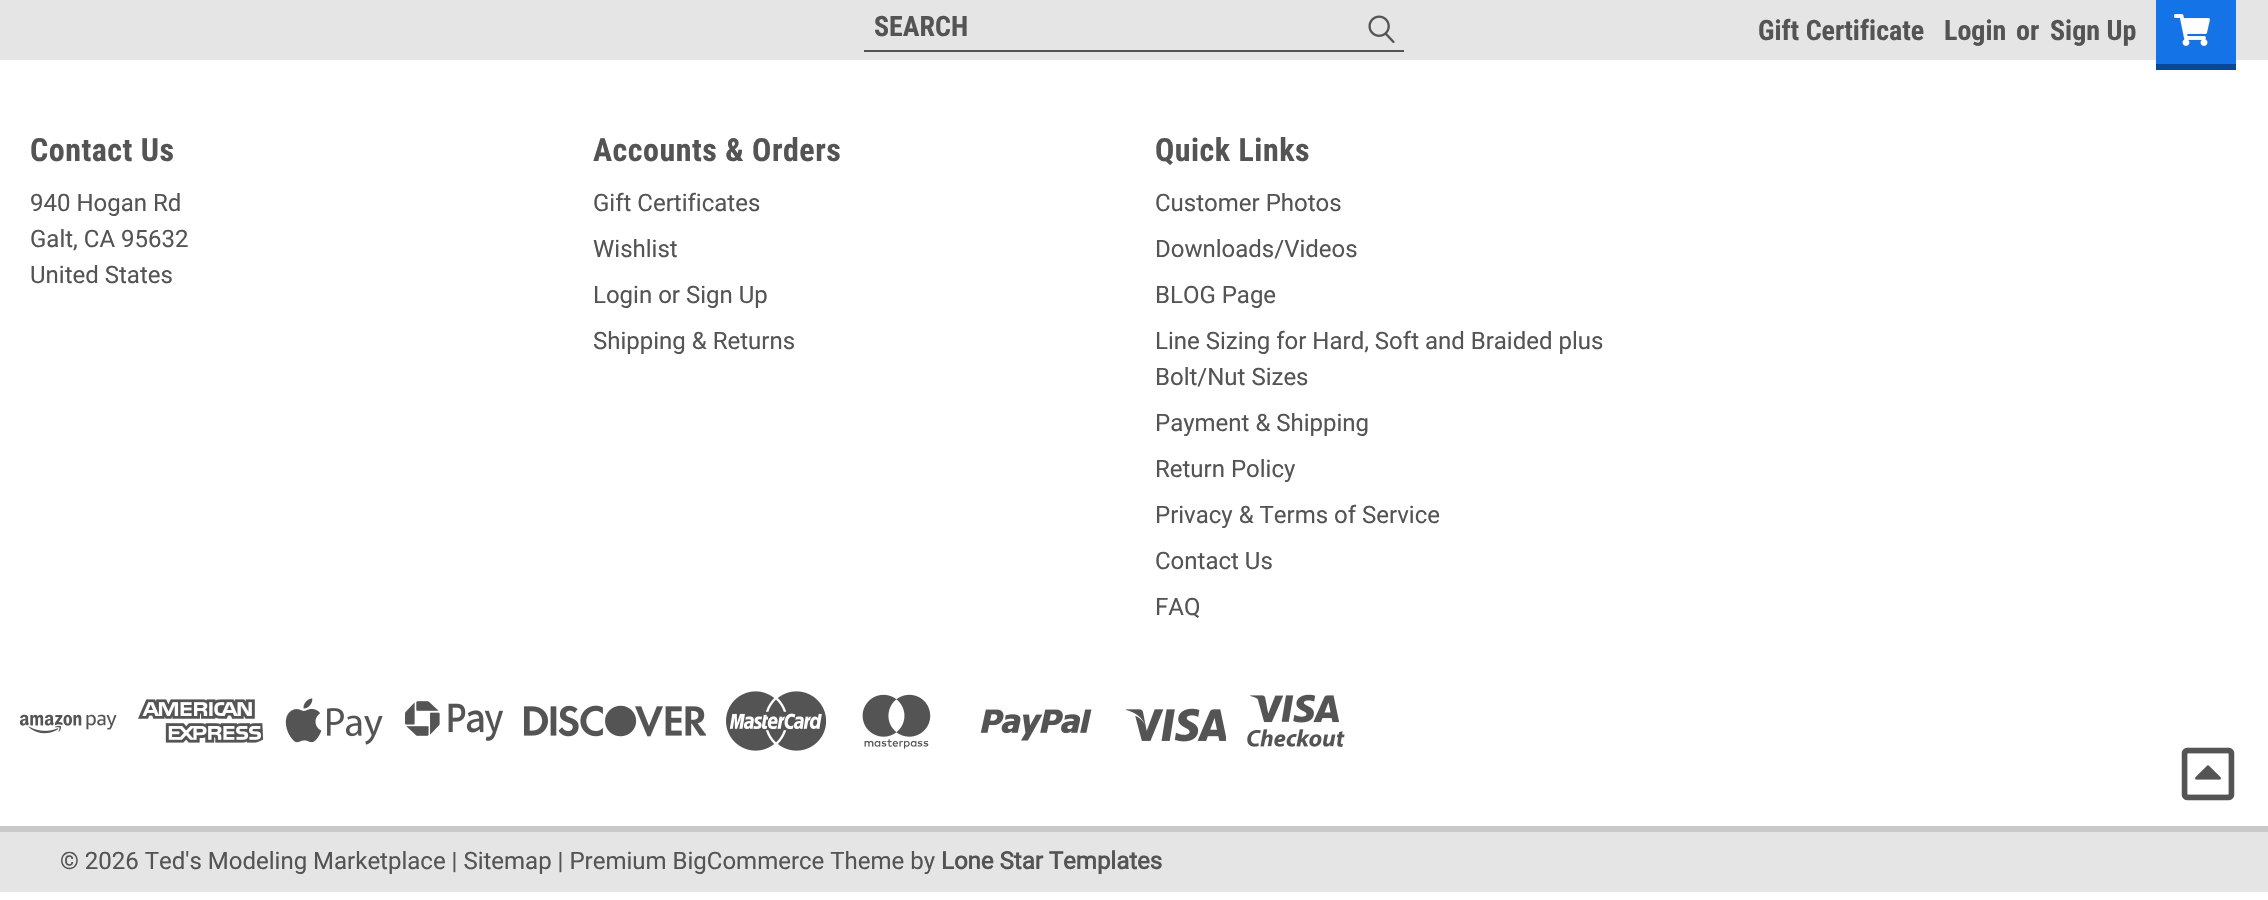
void draw(SkCanvas* canvas) {
	SkPaint paint;
	paint.setAntiAlias(true);
	auto spacedText = [&](const char* s, float x, float y, const SkFont& font, const SkPaint& ink, float letter, float word) {
		std::vector<SkGlyphID> glyphs(font.countText(s, strlen(s), SkTextEncoding::kUTF8));
		std::vector<float> xs(glyphs.size());
		font.textToGlyphs(s, strlen(s), SkTextEncoding::kUTF8, glyphs);
		font.getXPos(glyphs, xs, x);
		float extra = 0;
		for (size_t i = 0; i < glyphs.size(); i++) {
			xs[i] += extra;
			extra += letter + word * (glyphs[i] == font.unicharToGlyph(' '));
		}
		canvas->drawTextBlob(SkTextBlob::MakeFromPosHGlyphs(glyphs, xs, y, font), 0, 0, ink);
	};
	canvas->clear(0xffffffff);
	paint.setColor(0xffe5e5e5);
	canvas->drawRect(SkRect::MakeXYWH(0, 0, 2268, 60), paint);
	paint.setColor(0xff545454);
	canvas->drawRect(SkRect::MakeXYWH(864, 50, 540, 2), paint);
	SkFont f1(fontMgr->matchFamilyStyle("Roboto Condensed", SkFontStyle::Bold()), 28);
	f1.setSubpixel(true);
	canvas->drawString("SEARCH", 874, 36, f1, paint);
	canvas->drawImageRect(SkImages::DeferredFromEncodedData(SkData::MakeFromFileName("img1.png")), SkRect::MakeXYWH(1368, 15, 27, 28), SkSamplingOptions());
	canvas->drawString("Gift Certificate", 1758, 40, f1, paint);
	canvas->drawString("Login", 1944, 40, f1, paint);
	canvas->drawString("or", 2016, 40, f1, paint);
	canvas->drawString("Sign Up", 2050, 40, f1, paint);
	paint.setColor(0xff1473e6);
	canvas->drawRect(SkRect::MakeXYWH(2156, 0, 80, 64), paint);
	paint.setColor(0xff074999);
	canvas->drawRect(SkRect::MakeXYWH(2156, 64, 80, 6), paint);
	canvas->drawImageRect(SkImages::DeferredFromEncodedData(SkData::MakeFromFileName("img2.png")), SkRect::MakeXYWH(2174, 13, 36, 33), SkSamplingOptions());
	SkFont f2(fontMgr->matchFamilyStyle("Roboto Condensed", SkFontStyle::Bold()), 32);
	f2.setSubpixel(true);
	paint.setColor(0xff545454);
	spacedText("Contact Us", 30, 161, f2, paint, 0.5, 0);
	SkFont f3(fontMgr->matchFamilyStyle("Roboto", SkFontStyle::Normal()), 24);
	f3.setSubpixel(true);
	canvas->drawString("940 Hogan Rd", 30, 211, f3, paint);
	canvas->drawString("Galt, CA 95632", 30, 247, f3, paint);
	canvas->drawString("United States", 30, 283, f3, paint);
	spacedText("Accounts & Orders", 593, 161, f2, paint, 0.5, 0);
	canvas->drawString("Gift Certificates", 593, 211, f3, paint);
	canvas->drawString("Wishlist", 593, 257, f3, paint);
	canvas->drawString("Login or", 593, 303, f3, paint);
	canvas->drawString("Sign Up", 686, 303, f3, paint);
	canvas->drawString("Shipping & Returns", 593, 349, f3, paint);
	spacedText("Quick Links", 1155, 161, f2, paint, 0.5, 0);
	canvas->drawString("Customer Photos", 1155, 211, f3, paint);
	canvas->drawString("Downloads/Videos", 1155, 257, f3, paint);
	canvas->drawString("BLOG Page", 1155, 303, f3, paint);
	canvas->drawString("Line Sizing for Hard, Soft and Braided plus", 1155, 349, f3, paint);
	canvas->drawString("Bolt/Nut Sizes", 1155, 385, f3, paint);
	canvas->drawString("Payment & Shipping", 1155, 431, f3, paint);
	canvas->drawString("Return Policy", 1155, 477, f3, paint);
	canvas->drawString("Privacy & Terms of Service", 1155, 523, f3, paint);
	canvas->drawString("Contact Us", 1155, 569, f3, paint);
	canvas->drawString("FAQ", 1155, 615, f3, paint);
	canvas->drawImageRect(SkImages::DeferredFromEncodedData(SkData::MakeFromFileName("img3.png")), SkRect::MakeXYWH(19, 714, 98, 20), SkSamplingOptions());
	canvas->drawImageRect(SkImages::DeferredFromEncodedData(SkData::MakeFromFileName("img4.png")), SkRect::MakeXYWH(138, 699, 126, 44), SkSamplingOptions());
	canvas->drawImageRect(SkImages::DeferredFromEncodedData(SkData::MakeFromFileName("img5.png")), SkRect::MakeXYWH(285, 698, 98, 47), SkSamplingOptions());
	canvas->drawImageRect(SkImages::DeferredFromEncodedData(SkData::MakeFromFileName("img6.png")), SkRect::MakeXYWH(405, 701, 99, 40), SkSamplingOptions());
	canvas->drawImageRect(SkImages::DeferredFromEncodedData(SkData::MakeFromFileName("img7.png")), SkRect::MakeXYWH(524, 705, 182, 32), SkSamplingOptions());
	canvas->drawImageRect(SkImages::DeferredFromEncodedData(SkData::MakeFromFileName("img8.png")), SkRect::MakeXYWH(726, 691, 100, 60), SkSamplingOptions());
	canvas->drawImageRect(SkImages::DeferredFromEncodedData(SkData::MakeFromFileName("img9.png")), SkRect::MakeXYWH(862, 694, 69, 55), SkSamplingOptions());
	canvas->drawImageRect(SkImages::DeferredFromEncodedData(SkData::MakeFromFileName("img10.png")), SkRect::MakeXYWH(980, 709, 112, 32), SkSamplingOptions());
	canvas->drawImageRect(SkImages::DeferredFromEncodedData(SkData::MakeFromFileName("img11.png")), SkRect::MakeXYWH(1126, 708, 100, 34), SkSamplingOptions());
	canvas->drawImageRect(SkImages::DeferredFromEncodedData(SkData::MakeFromFileName("img12.png")), SkRect::MakeXYWH(1247, 694, 98, 53), SkSamplingOptions());
	canvas->drawImageRect(SkImages::DeferredFromEncodedData(SkData::MakeFromFileName("img13.png")), SkRect::MakeXYWH(2181, 747, 54, 54), SkSamplingOptions());
	paint.setColor(0xffe5e5e5);
	canvas->drawRect(SkRect::MakeXYWH(0, 832, 2268, 60), paint);
	paint.setColor(0xffc9c9c9);
	canvas->drawRect(SkRect::MakeXYWH(0, 826, 2268, 6), paint);
	paint.setColor(0xff545454);
	canvas->drawString("© 2026 Ted's Modeling Marketplace | Sitemap | Premium BigCommerce Theme by", 60, 869, f3, paint);
	SkFont f4(fontMgr->matchFamilyStyle("Roboto", SkFontStyle::Bold()), 24);
	f4.setSubpixel(true);
	canvas->drawString("Lone Star Templates", 941, 869, f4, paint);
}
